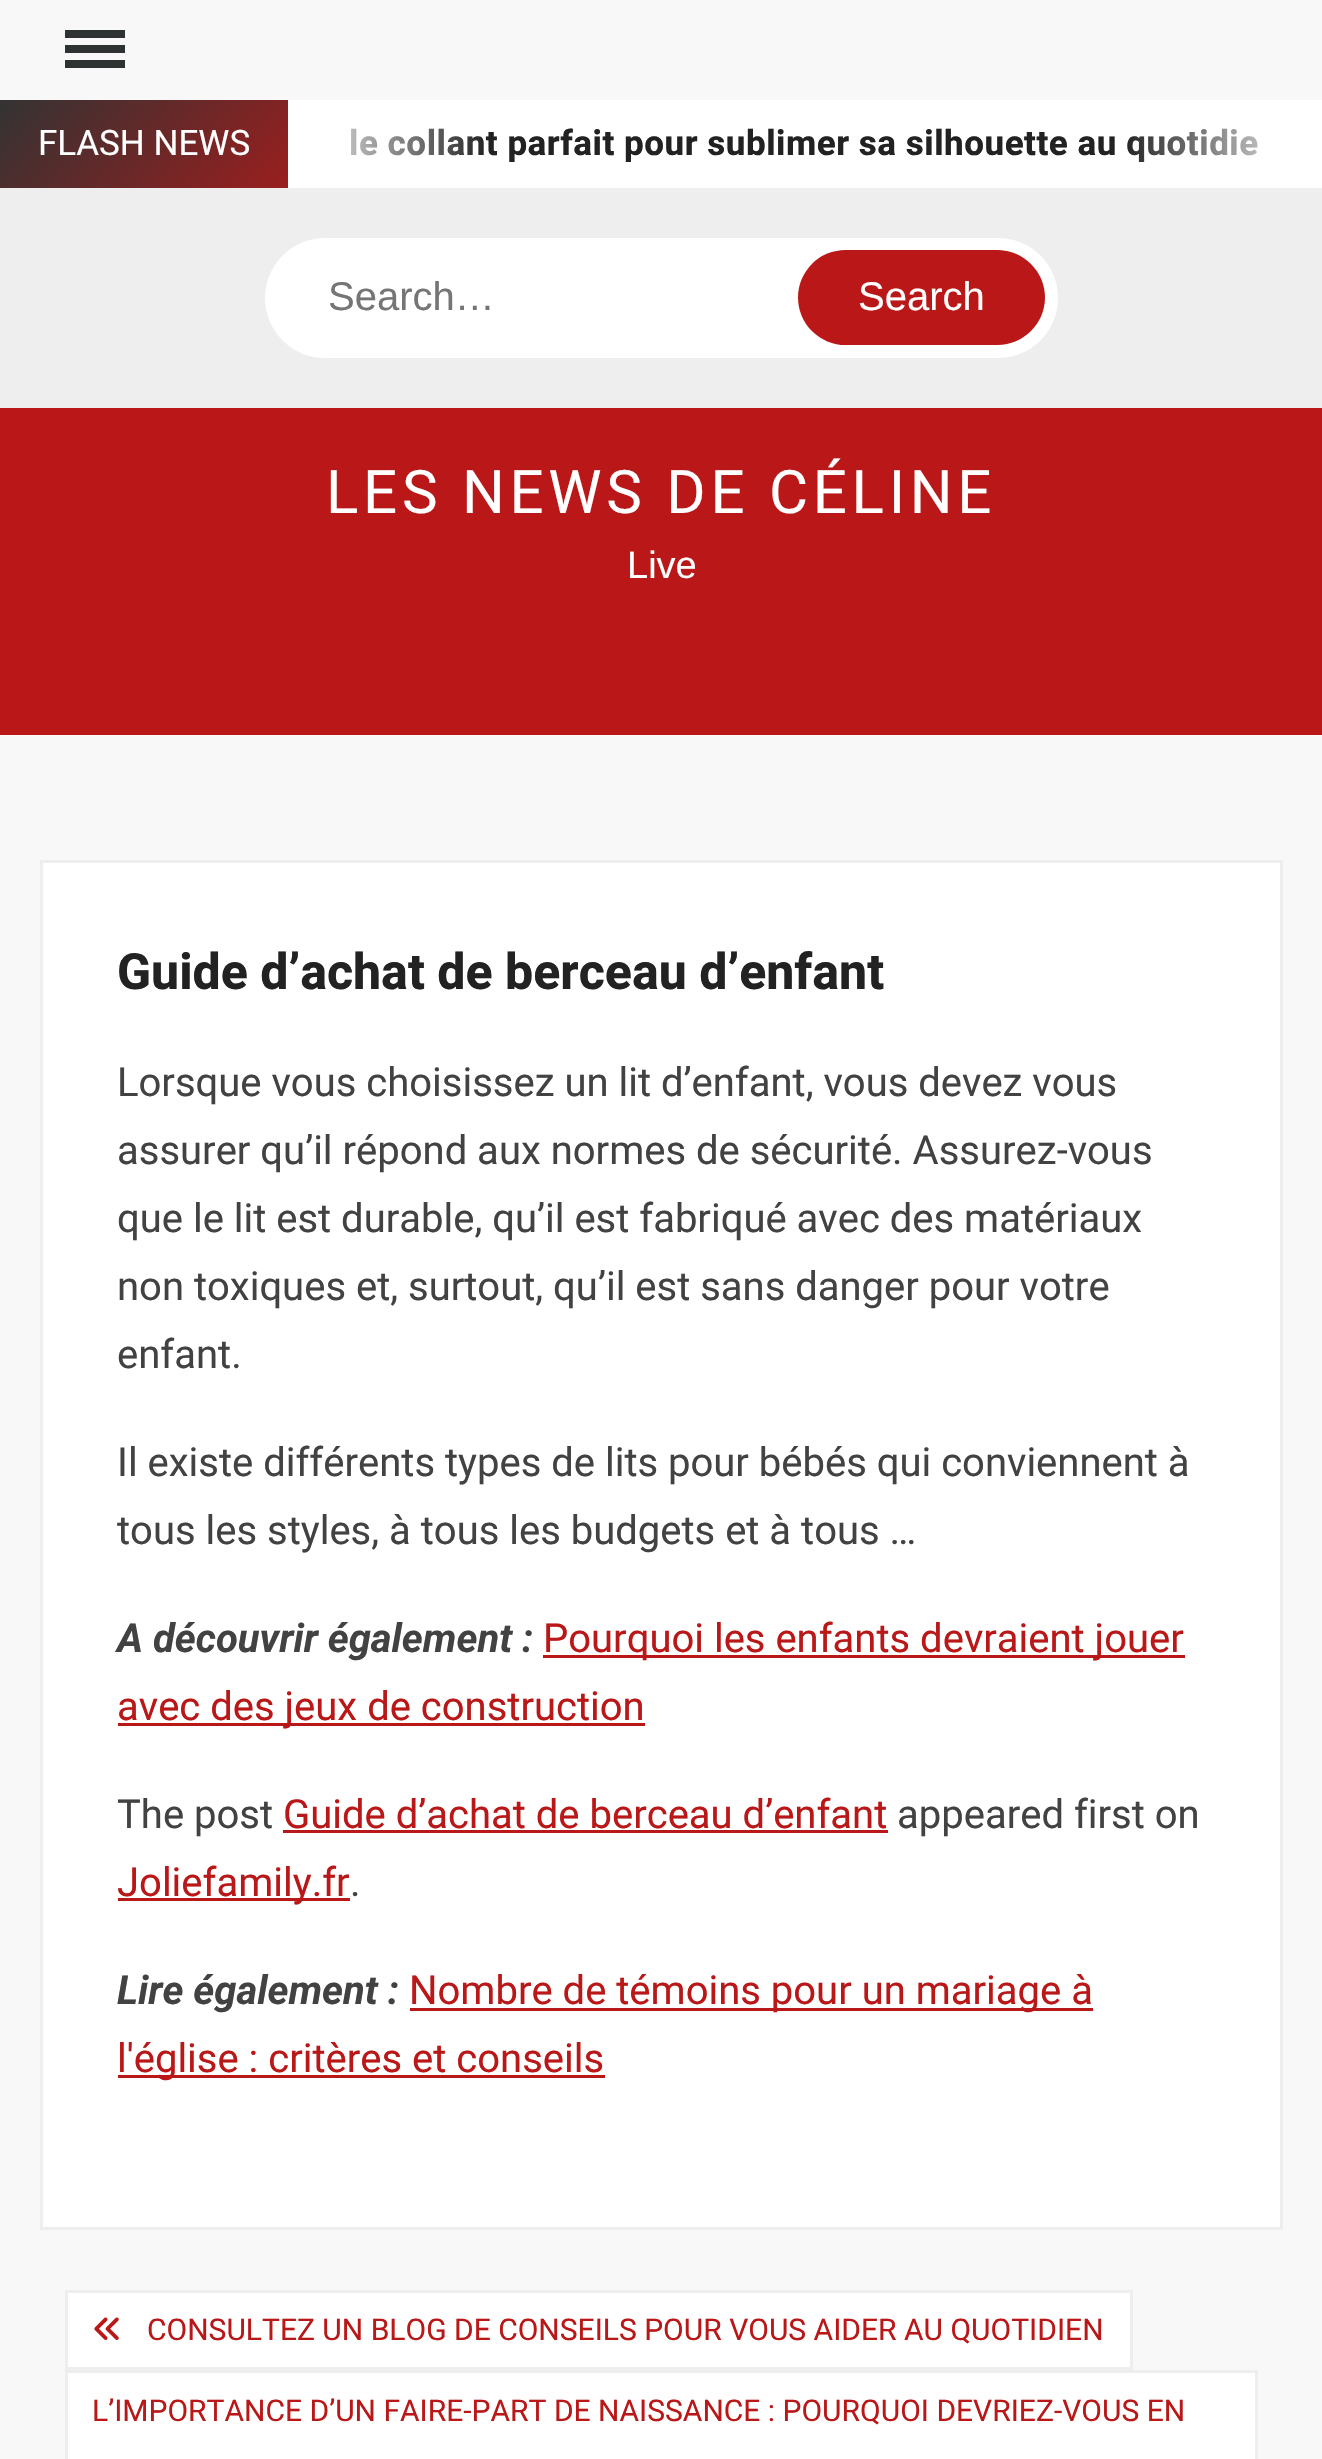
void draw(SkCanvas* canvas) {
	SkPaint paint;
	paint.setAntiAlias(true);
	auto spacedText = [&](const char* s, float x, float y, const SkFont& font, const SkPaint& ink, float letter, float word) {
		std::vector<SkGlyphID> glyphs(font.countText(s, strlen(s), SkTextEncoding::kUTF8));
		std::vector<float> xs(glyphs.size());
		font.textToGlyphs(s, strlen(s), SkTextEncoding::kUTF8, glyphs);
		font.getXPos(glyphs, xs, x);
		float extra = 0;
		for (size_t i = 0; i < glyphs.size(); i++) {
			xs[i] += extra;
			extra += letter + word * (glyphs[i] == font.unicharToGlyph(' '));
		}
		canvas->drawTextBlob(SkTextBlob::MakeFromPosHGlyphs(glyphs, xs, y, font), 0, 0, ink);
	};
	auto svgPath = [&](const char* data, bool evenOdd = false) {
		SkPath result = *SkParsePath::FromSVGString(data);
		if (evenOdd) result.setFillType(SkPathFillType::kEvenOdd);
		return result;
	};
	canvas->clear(0xfff8f8f8);
	paint.setColor(0xff2e3233);
	canvas->drawRect(SkRect::MakeXYWH(65, 45, 60, 8), paint);
	canvas->drawRect(SkRect::MakeXYWH(65, 30, 60, 8), paint);
	canvas->drawRect(SkRect::MakeXYWH(65, 60, 60, 8), paint);
	paint.setColor(0xffffffff);
	canvas->drawRect(SkRect::MakeXYWH(289, 100, 1033, 88), paint);
	SkFont f1(fontMgr->matchFamilyStyle("Heebo", SkFontStyle::Bold()), 35);
	f1.setSubpixel(true);
	paint.setColor(0xff222222);
	spacedText("le collant parfait pour sublimer sa silhouette au quotidie", 349, 155, f1, paint, 0.5, 0);
	{
		const SkColor colors[] = {0xffba1818, 0xffeeeeee, 0xffba1818, 0xff333333};
		const float stops[] = {0, 0.33, 0.67, 1};
		const SkPoint ends[] = {{950, 650}, {200, -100}};
		paint.setShader(SkGradientShader::MakeLinear(ends, colors, stops, 4, SkTileMode::kClamp));
		paint.setAlpha(255);
	}
	canvas->drawRect(SkRect::MakeXYWH(0, 100, 288, 88), paint);
	SkFont f2(fontMgr->matchFamilyStyle("Heebo", SkFontStyle::Normal()), 35);
	f2.setSubpixel(true);
	paint.setShader(nullptr);
	paint.setColor(0xffffffff);
	canvas->drawString("FLASH NEWS", 38, 155, f2, paint);
	{
		const SkColor colors[] = {0xffffffff, 0x00ffffff};
		const float stops[] = {0, 1};
		const SkPoint ends[] = {{288, 144}, {488, 144}};
		paint.setShader(SkGradientShader::MakeLinear(ends, colors, stops, 2, SkTileMode::kClamp));
		paint.setAlpha(255);
	}
	canvas->drawRect(SkRect::MakeXYWH(288, 100, 196, 88), paint);
	{
		const SkColor colors[] = {0x00ffffff, 0xffffffff};
		const float stops[] = {0, 1};
		const SkPoint ends[] = {{1123, 144}, {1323, 144}};
		paint.setShader(SkGradientShader::MakeLinear(ends, colors, stops, 2, SkTileMode::kClamp));
		paint.setAlpha(255);
	}
	canvas->drawRect(SkRect::MakeXYWH(1127, 128, 131, 35), paint);
	paint.setShader(nullptr);
	paint.setColor(0xffeeeeee);
	canvas->drawRect(SkRect::MakeXYWH(0, 188, 1322, 220), paint);
	paint.setColor(0xffffffff);
	canvas->drawRoundRect(SkRect::MakeXYWH(265, 238, 793, 120), 60, 60, paint);
	SkFont f3(fontMgr->matchFamilyStyle("Arimo", SkFontStyle::Normal()), 40);
	f3.setSubpixel(true);
	paint.setColor(0xff757575);
	canvas->drawString("Search…", 328, 310, f3, paint);
	canvas->save();
	canvas->clipPath(svgPath("M325.5 250H997.5C1023.5 250 1045 271.5 1045 297.5C1045 323.5 1023.5 345 997.5 345H325.5C299.5 345 278 323.5 278 297.5C278 271.5 299.5 250 325.5 250Z"), true);
	paint.setColor(0xffba1818);
	canvas->drawRoundRect(SkRect::MakeXYWH(798, 250, 250, 95), 47.5, 47.5, paint);
	canvas->restore();
	paint.setColor(0xffffffff);
	canvas->drawString("Search", 858, 310, f3, paint);
	paint.setColor(0xffba1818);
	canvas->drawRect(SkRect::MakeXYWH(0, 408, 1322, 327), paint);
	SkFont f4(fontMgr->matchFamilyStyle("Heebo", SkFontStyle::Normal()), 60);
	f4.setSubpixel(true);
	paint.setColor(0xffffffff);
	spacedText("LES NEWS DE CÉLINE", 326, 513, f4, paint, 4.75, 0);
	SkFont f5(fontMgr->matchFamilyStyle("Arimo", SkFontStyle::Normal()), 38);
	f5.setSubpixel(true);
	canvas->drawString("Live", 627, 578, f5, paint);
	canvas->drawRect(SkRect::MakeXYWH(41.5, 861.5, 1240, 1367), paint);
	paint.setStroke(true);
	paint.setStrokeWidth(3);
	paint.setColor(0xffeeeeee);
	canvas->drawRect(SkRect::MakeXYWH(41.5, 861.5, 1240, 1367), paint);
	SkFont f6(fontMgr->matchFamilyStyle("Heebo", SkFontStyle::Bold()), 50);
	f6.setSubpixel(true);
	paint.setStroke(false);
	paint.setColor(0xff222222);
	canvas->drawString("Guide d’achat de berceau d’enfant", 117, 989, f6, paint);
	SkFont f7(fontMgr->matchFamilyStyle("Roboto", SkFontStyle::Normal()), 40);
	f7.setSubpixel(true);
	paint.setColor(0xff424242);
	canvas->drawString("Lorsque vous choisissez un lit d’enfant, vous devez vous", 117, 1096, f7, paint);
	canvas->drawString("assurer qu’il répond aux normes de sécurité. Assurez-vous", 117, 1164, f7, paint);
	canvas->drawString("que le lit est durable, qu’il est fabriqué avec des matériaux", 117, 1232, f7, paint);
	canvas->drawString("non toxiques et, surtout, qu’il est sans danger pour votre", 117, 1300, f7, paint);
	canvas->drawString("enfant.", 117, 1368, f7, paint);
	canvas->drawString("Il existe différents types de lits pour bébés qui conviennent à", 117, 1476, f7, paint);
	canvas->drawString("tous les styles, à tous les budgets et à tous …", 117, 1544, f7, paint);
	SkFont f8(fontMgr->matchFamilyStyle("Roboto", SkFontStyle::BoldItalic()), 40);
	f8.setSubpixel(true);
	canvas->drawString("A découvrir également :", 117, 1652, f8, paint);
	paint.setColor(0xffba1818);
	canvas->drawRect(SkRect::MakeXYWH(543, 1655, 642, 3), paint);
	canvas->drawString("Pourquoi les enfants devraient jouer", 543, 1652, f7, paint);
	canvas->drawRect(SkRect::MakeXYWH(118, 1723, 527, 3), paint);
	canvas->drawString("avec des jeux de construction", 117, 1720, f7, paint);
	paint.setColor(0xff424242);
	canvas->drawString("The post", 117, 1828, f7, paint);
	paint.setColor(0xffba1818);
	canvas->drawString("Guide d’achat de berceau d’enfant", 283, 1828, f7, paint);
	canvas->drawRect(SkRect::MakeXYWH(283, 1830, 605, 3), paint);
	paint.setColor(0xff424242);
	canvas->drawString("appeared first on", 897, 1828, f7, paint);
	paint.setColor(0xffba1818);
	canvas->drawRect(SkRect::MakeXYWH(118, 1898, 232, 3), paint);
	canvas->drawString("Joliefamily.fr", 117, 1896, f7, paint);
	paint.setColor(0xff424242);
	canvas->drawString(".", 350, 1896, f7, paint);
	canvas->drawString("Lire également :", 117, 2004, f8, paint);
	paint.setColor(0xffba1818);
	canvas->drawRect(SkRect::MakeXYWH(410, 2008, 683, 3), paint);
	canvas->drawString("Nombre de témoins pour un mariage à", 409, 2004, f7, paint);
	canvas->drawRect(SkRect::MakeXYWH(118, 2075, 487, 3), paint);
	canvas->drawString("l'église : critères et conseils", 117, 2072, f7, paint);
	paint.setColor(0xffffffff);
	canvas->drawRect(SkRect::MakeXYWH(66.5, 2291.5, 1065, 77), paint);
	paint.setStroke(true);
	paint.setColor(0xffeeeeee);
	canvas->drawRect(SkRect::MakeXYWH(66.5, 2291.5, 1065, 77), paint);
	canvas->drawImageRect(SkImages::DeferredFromEncodedData(SkData::MakeFromFileName("img1.png")), SkRect::MakeXYWH(94, 2317, 25, 23), SkSamplingOptions());
	SkFont f9(fontMgr->matchFamilyStyle("Roboto", SkFontStyle::Normal()), 30);
	f9.setSubpixel(true);
	paint.setStroke(false);
	paint.setColor(0xffba1818);
	canvas->drawString("CONSULTEZ UN BLOG DE CONSEILS POUR VOUS AIDER AU QUOTIDIEN", 147, 2340, f9, paint);
	paint.setColor(0xffffffff);
	canvas->drawRect(SkRect::MakeXYWH(66.5, 2371.5, 1190, 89), paint);
	paint.setStroke(true);
	paint.setColor(0xffeeeeee);
	canvas->drawRect(SkRect::MakeXYWH(66.5, 2371.5, 1190, 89), paint);
	paint.setStroke(false);
	paint.setColor(0xffba1818);
	canvas->drawString("L’IMPORTANCE D’UN FAIRE-PART DE NAISSANCE : POURQUOI DEVRIEZ-VOUS EN", 92, 2421, f9, paint);
}
